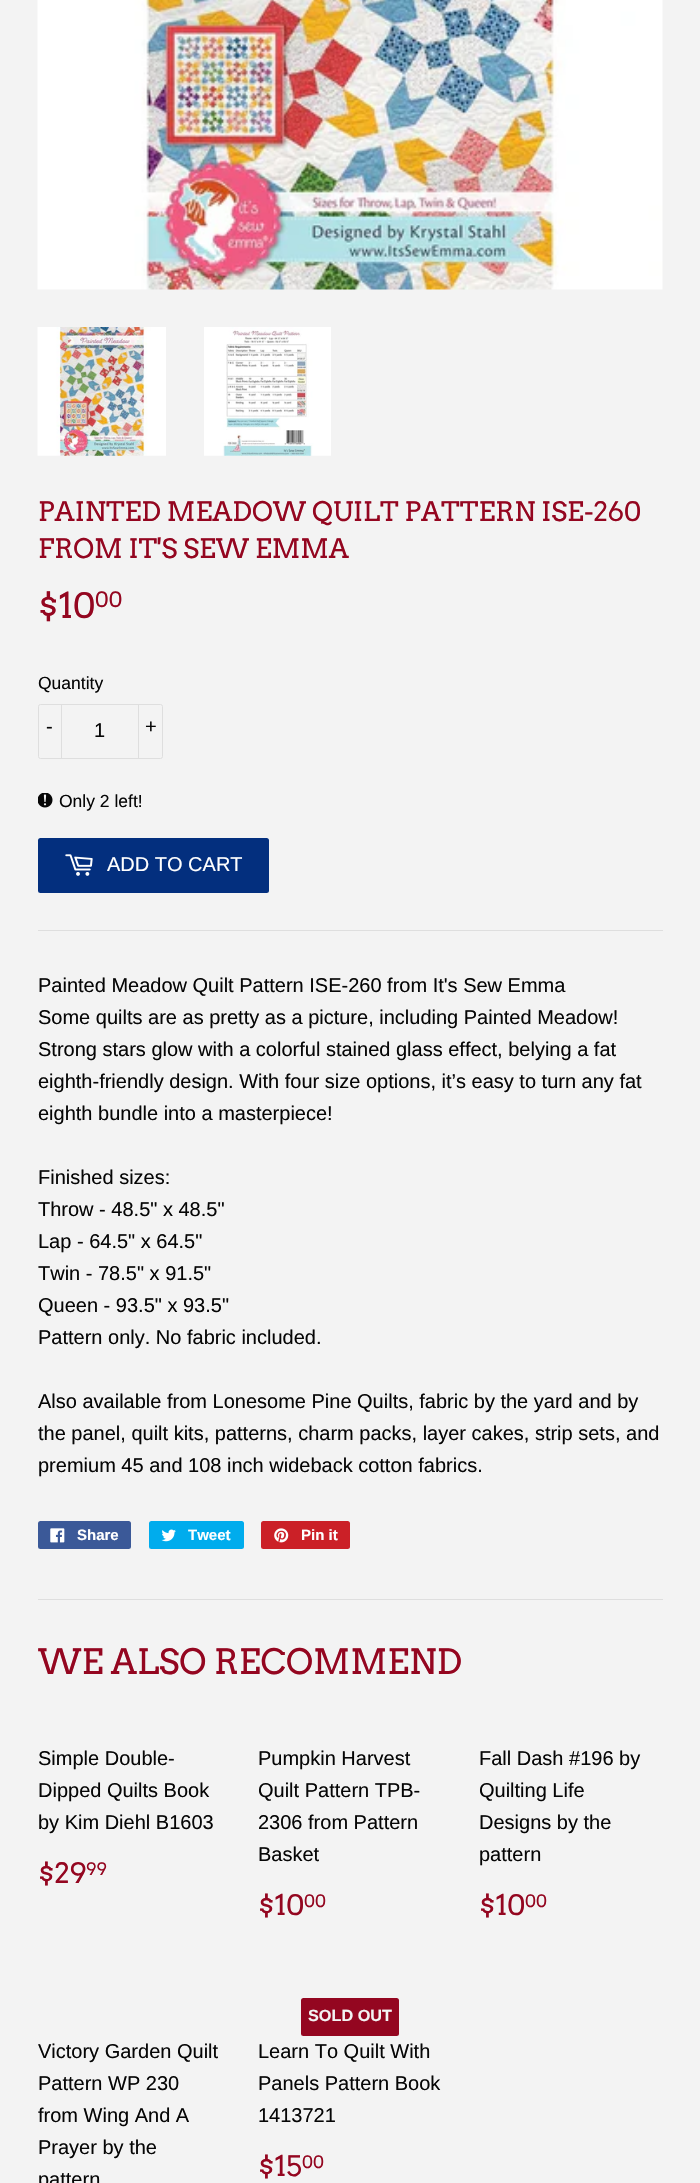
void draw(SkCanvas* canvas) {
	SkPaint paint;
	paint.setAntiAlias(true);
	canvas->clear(0xfff3f3f3);
	canvas->drawImageRect(SkImages::DeferredFromEncodedData(SkData::MakeFromFileName("img1.png")), SkRect::MakeXYWH(37, 0, 626, 290), SkSamplingOptions());
	canvas->drawImageRect(SkImages::DeferredFromEncodedData(SkData::MakeFromFileName("img2.png")), SkRect::MakeXYWH(37, 327, 129, 129), SkSamplingOptions());
	canvas->drawImageRect(SkImages::DeferredFromEncodedData(SkData::MakeFromFileName("img3.png")), SkRect::MakeXYWH(204, 327, 127, 129), SkSamplingOptions());
	SkFont f1(fontMgr->matchFamilyStyle("Arvo", SkFontStyle::Normal()), 26.7);
	f1.setSubpixel(true);
	paint.setColor(0xff940620);
	canvas->drawString("PAINTED MEADOW QUILT PATTERN ISE-260", 38, 521, f1, paint);
	canvas->drawString("FROM IT'S SEW EMMA", 38, 558, f1, paint);
	SkFont f2(fontMgr->matchFamilyStyle("Arvo", SkFontStyle::Normal()), 34.7);
	f2.setSubpixel(true);
	canvas->drawString("$10", 38, 618, f2, paint);
	SkFont f3(fontMgr->matchFamilyStyle("Arvo", SkFontStyle::Normal()), 21);
	f3.setSubpixel(true);
	canvas->drawString("00", 95, 607, f3, paint);
	SkFont f4(fontMgr->matchFamilyStyle("Liberation Sans", SkFontStyle::Normal()), 17.5);
	f4.setSubpixel(true);
	paint.setColor(0xff060606);
	canvas->drawString("Quantity", 38, 689, f4, paint);
	paint.setStroke(true);
	paint.setStrokeWidth(1);
	paint.setColor(0xffdedede);
	canvas->drawRoundRect(SkRect::MakeXYWH(38.5, 704.5, 124, 54), 2, 2, paint);
	paint.setStroke(false);
	canvas->drawRect(SkRect::MakeXYWH(61, 704, 1, 55), paint);
	SkFont f5(fontMgr->matchFamilyStyle("Liberation Sans", SkFontStyle::Normal()), 20);
	f5.setSubpixel(true);
	paint.setColor(0xff060606);
	canvas->drawString("-", 46, 733, f5, paint);
	canvas->drawString("1", 94, 737, f5, paint);
	paint.setColor(0xffdedede);
	canvas->drawRect(SkRect::MakeXYWH(138, 704, 1, 55), paint);
	paint.setColor(0xff060606);
	canvas->drawString("+", 145, 733, f5, paint);
	canvas->drawImageRect(SkImages::DeferredFromEncodedData(SkData::MakeFromFileName("img4.png")), SkRect::MakeXYWH(38, 793, 15, 15), SkSamplingOptions());
	canvas->drawString("Only 2 left!", 59, 807, f4, paint);
	paint.setColor(0xff032f7e);
	canvas->drawRoundRect(SkRect::MakeXYWH(38, 838, 231, 55), 2.5, 2.5, paint);
	canvas->drawImageRect(SkImages::DeferredFromEncodedData(SkData::MakeFromFileName("img5.png")), SkRect::MakeXYWH(65, 854, 28, 22), SkSamplingOptions());
	paint.setColor(0xffffffff);
	canvas->drawString("ADD TO CART", 107, 871, f5, paint);
	paint.setColor(0xffdedede);
	canvas->drawRect(SkRect::MakeXYWH(38, 930, 625, 1), paint);
	paint.setColor(0xff060606);
	canvas->drawString("Painted Meadow Quilt Pattern ISE-260 from It's Sew Emma", 38, 992, f5, paint);
	canvas->drawString("Some quilts are as pretty as a picture, including Painted Meadow!", 38, 1024, f5, paint);
	canvas->drawString("Strong stars glow with a colorful stained glass effect, belying a fat", 38, 1056, f5, paint);
	canvas->drawString("eighth-friendly design. With four size options, it’s easy to turn any fat", 38, 1088, f5, paint);
	canvas->drawString("eighth bundle into a masterpiece!", 38, 1120, f5, paint);
	canvas->drawString("Finished sizes:", 38, 1184, f5, paint);
	canvas->drawString("Throw - 48.5\" x 48.5\"", 38, 1216, f5, paint);
	canvas->drawString("Lap - 64.5\" x 64.5\"", 38, 1248, f5, paint);
	canvas->drawString("Twin - 78.5\" x 91.5\"", 38, 1280, f5, paint);
	canvas->drawString("Queen - 93.5\" x 93.5\"", 38, 1312, f5, paint);
	canvas->drawString("Pattern only. No fabric included.", 38, 1344, f5, paint);
	canvas->drawString("Also available from Lonesome Pine Quilts, fabric by the yard and by", 38, 1408, f5, paint);
	canvas->drawString("the panel, quilt kits, patterns, charm packs, layer cakes, strip sets, and", 38, 1440, f5, paint);
	canvas->drawString("premium 45 and 108 inch wideback cotton fabrics.", 38, 1472, f5, paint);
	paint.setColor(0xff3b5998);
	canvas->drawRoundRect(SkRect::MakeXYWH(38, 1521, 93, 28), 2.5, 2.5, paint);
	canvas->drawImageRect(SkImages::DeferredFromEncodedData(SkData::MakeFromFileName("img6.png")), SkRect::MakeXYWH(50, 1528, 15, 15), SkSamplingOptions());
	SkFont f6(fontMgr->matchFamilyStyle("Liberation Sans", SkFontStyle::Bold()), 15);
	f6.setSubpixel(true);
	paint.setColor(0xffffffff);
	canvas->drawString("Share", 77, 1540, f6, paint);
	paint.setColor(0xff00aced);
	canvas->drawRoundRect(SkRect::MakeXYWH(149, 1521, 95, 28), 2.5, 2.5, paint);
	canvas->drawImageRect(SkImages::DeferredFromEncodedData(SkData::MakeFromFileName("img7.png")), SkRect::MakeXYWH(161, 1529, 15, 13), SkSamplingOptions());
	paint.setColor(0xffffffff);
	canvas->drawString("Tweet", 188, 1540, f6, paint);
	paint.setColor(0xffcb2027);
	canvas->drawRoundRect(SkRect::MakeXYWH(261, 1521, 89, 28), 2.5, 2.5, paint);
	canvas->drawImageRect(SkImages::DeferredFromEncodedData(SkData::MakeFromFileName("img8.png")), SkRect::MakeXYWH(274, 1528, 15, 15), SkSamplingOptions());
	paint.setColor(0xffffffff);
	canvas->drawString("Pin it", 301, 1540, f6, paint);
	paint.setColor(0xffdedede);
	canvas->drawRect(SkRect::MakeXYWH(38, 1599, 625, 1), paint);
	paint.setColor(0xff940620);
	canvas->drawString("WE ALSO RECOMMEND", 38, 1674, f2, paint);
	paint.setColor(0xff060606);
	canvas->drawString("Simple Double-", 38, 1765, f5, paint);
	canvas->drawString("Dipped Quilts Book", 38, 1797, f5, paint);
	canvas->drawString("by Kim Diehl B1603", 38, 1829, f5, paint);
	SkFont f7(fontMgr->matchFamilyStyle("Arvo", SkFontStyle::Normal()), 28);
	f7.setSubpixel(true);
	paint.setColor(0xff940620);
	canvas->drawString("$29", 38, 1883, f7, paint);
	SkFont f8(fontMgr->matchFamilyStyle("Arvo", SkFontStyle::Normal()), 17);
	f8.setSubpixel(true);
	canvas->drawString("99", 86, 1875, f8, paint);
	paint.setColor(0xff060606);
	canvas->drawString("Pumpkin Harvest", 258, 1765, f5, paint);
	canvas->drawString("Quilt Pattern TPB-", 258, 1797, f5, paint);
	canvas->drawString("2306 from Pattern", 258, 1829, f5, paint);
	canvas->drawString("Basket", 258, 1861, f5, paint);
	paint.setColor(0xff940620);
	canvas->drawString("$10", 258, 1915, f7, paint);
	canvas->drawString("00", 304, 1907, f8, paint);
	paint.setColor(0xff060606);
	canvas->drawString("Fall Dash #196 by", 479, 1765, f5, paint);
	canvas->drawString("Quilting Life", 479, 1797, f5, paint);
	canvas->drawString("Designs by the", 479, 1829, f5, paint);
	canvas->drawString("pattern", 479, 1861, f5, paint);
	paint.setColor(0xff940620);
	canvas->drawString("$10", 479, 1915, f7, paint);
	canvas->drawString("00", 525, 1907, f8, paint);
	paint.setColor(0xff060606);
	canvas->drawString("Victory Garden Quilt", 38, 2058, f5, paint);
	canvas->drawString("Pattern WP 230", 38, 2090, f5, paint);
	canvas->drawString("from Wing And A", 38, 2122, f5, paint);
	canvas->drawString("Prayer by the", 38, 2154, f5, paint);
	canvas->drawString("pattern", 38, 2186, f5, paint);
	paint.setColor(0xff940620);
	canvas->drawRoundRect(SkRect::MakeXYWH(301, 1998, 98, 38), 2.5, 2.5, paint);
	SkFont f9(fontMgr->matchFamilyStyle("Liberation Sans", SkFontStyle::Bold()), 16.25);
	f9.setSubpixel(true);
	paint.setColor(0xfff3f3f3);
	canvas->drawString("SOLD OUT", 308, 2021, f9, paint);
	paint.setColor(0xff060606);
	canvas->drawString("Learn To Quilt With", 258, 2058, f5, paint);
	canvas->drawString("Panels Pattern Book", 258, 2090, f5, paint);
	canvas->drawString("1413721", 258, 2122, f5, paint);
	paint.setColor(0xff940620);
	canvas->drawString("$15", 258, 2176, f7, paint);
	canvas->drawString("00", 302, 2168, f8, paint);
}
